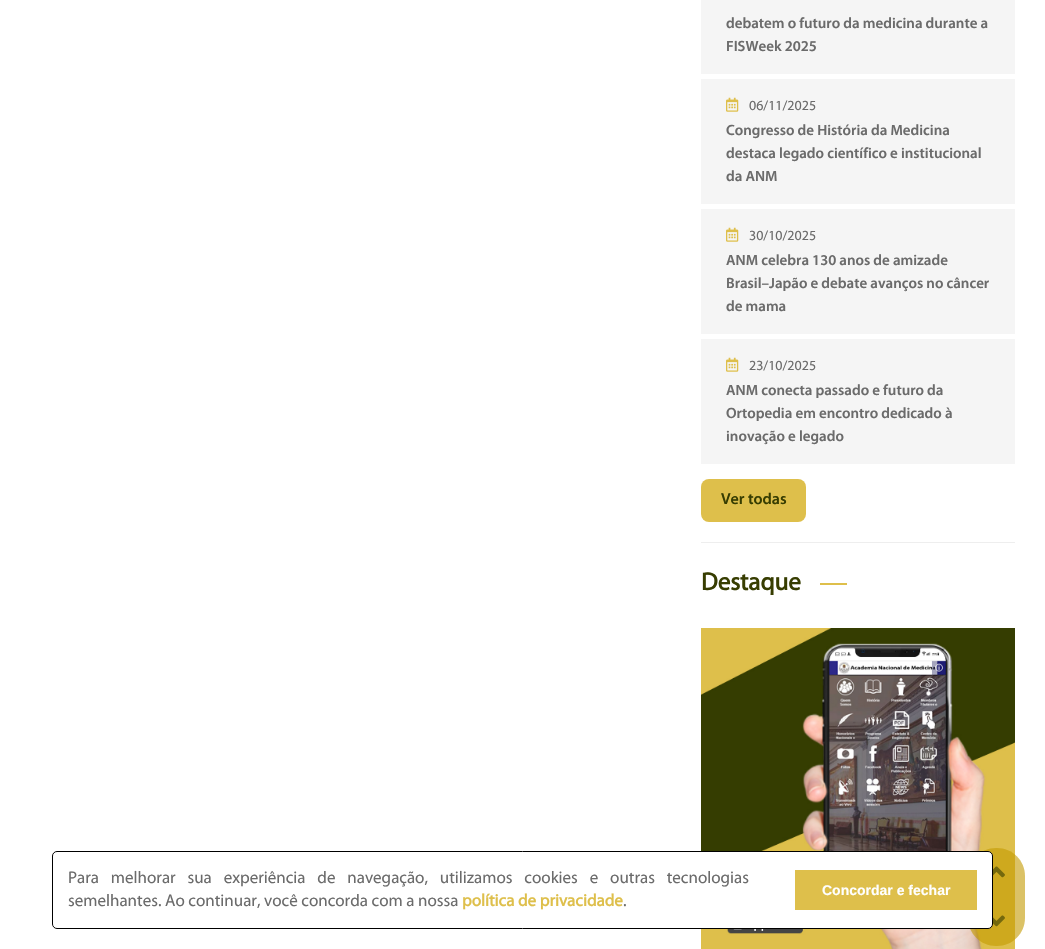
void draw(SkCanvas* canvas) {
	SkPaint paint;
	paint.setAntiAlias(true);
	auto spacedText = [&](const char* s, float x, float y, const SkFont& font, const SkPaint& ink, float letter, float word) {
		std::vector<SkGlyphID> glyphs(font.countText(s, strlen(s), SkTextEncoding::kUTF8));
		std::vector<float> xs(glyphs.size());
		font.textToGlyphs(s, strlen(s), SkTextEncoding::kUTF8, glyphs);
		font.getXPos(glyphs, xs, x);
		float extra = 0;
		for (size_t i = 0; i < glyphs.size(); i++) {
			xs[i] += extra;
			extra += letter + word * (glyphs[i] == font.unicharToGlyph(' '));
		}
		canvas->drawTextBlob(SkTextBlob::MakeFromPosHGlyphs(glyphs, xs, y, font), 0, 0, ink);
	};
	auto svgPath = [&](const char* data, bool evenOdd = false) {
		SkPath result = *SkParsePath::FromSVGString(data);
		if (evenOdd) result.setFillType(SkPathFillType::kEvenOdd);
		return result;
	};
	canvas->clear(0xffffffff);
	paint.setColor(0xfff5f5f5);
	canvas->drawRect(SkRect::MakeXYWH(701, 0, 314, 74), paint);
	SkFont f1(fontMgr->matchFamilyStyle("Myriad", SkFontStyle(600, SkFontStyle::kNormal_Width, SkFontStyle::kUpright_Slant)), 15);
	f1.setSubpixel(true);
	paint.setColor(0xff6b6b6b);
	canvas->drawString("debatem o futuro da medicina durante a", 726, 28, f1, paint);
	canvas->drawString("FISWeek 2025", 726, 51, f1, paint);
	paint.setColor(0xfff5f5f5);
	canvas->drawRect(SkRect::MakeXYWH(701, 79, 314, 125), paint);
	canvas->drawImageRect(SkImages::DeferredFromEncodedData(SkData::MakeFromFileName("img1.png")), SkRect::MakeXYWH(726, 97, 13, 15), SkSamplingOptions());
	SkFont f2(fontMgr->matchFamilyStyle("Myriad", SkFontStyle::Normal()), 14);
	f2.setSubpixel(true);
	paint.setColor(0xff6b6b6b);
	canvas->drawString("06/11/2025", 749, 110, f2, paint);
	canvas->drawString("Congresso de História da Medicina", 726, 135, f1, paint);
	canvas->drawString("destaca legado científico e institucional", 726, 158, f1, paint);
	canvas->drawString("da ANM", 726, 181, f1, paint);
	paint.setColor(0xfff5f5f5);
	canvas->drawRect(SkRect::MakeXYWH(701, 209, 314, 125), paint);
	canvas->drawImageRect(SkImages::DeferredFromEncodedData(SkData::MakeFromFileName("img1.png")), SkRect::MakeXYWH(726, 227, 13, 15), SkSamplingOptions());
	paint.setColor(0xff6b6b6b);
	canvas->drawString("30/10/2025", 749, 240, f2, paint);
	canvas->drawString("ANM celebra 130 anos de amizade", 726, 265, f1, paint);
	canvas->drawString("Brasil–Japão e debate avanços no câncer", 726, 288, f1, paint);
	canvas->drawString("de mama", 726, 311, f1, paint);
	paint.setColor(0xfff5f5f5);
	canvas->drawRect(SkRect::MakeXYWH(701, 339, 314, 125), paint);
	canvas->drawImageRect(SkImages::DeferredFromEncodedData(SkData::MakeFromFileName("img1.png")), SkRect::MakeXYWH(726, 357, 13, 15), SkSamplingOptions());
	paint.setColor(0xff6b6b6b);
	canvas->drawString("23/10/2025", 749, 370, f2, paint);
	canvas->drawString("ANM conecta passado e futuro da", 726, 395, f1, paint);
	canvas->drawString("Ortopedia em encontro dedicado à", 726, 418, f1, paint);
	canvas->drawString("inovação e legado", 726, 441, f1, paint);
	paint.setColor(0xffdebf4b);
	canvas->drawRoundRect(SkRect::MakeXYWH(701, 479, 105, 43), 8, 8, paint);
	SkFont f3(fontMgr->matchFamilyStyle("Myriad", SkFontStyle(600, SkFontStyle::kNormal_Width, SkFontStyle::kUpright_Slant)), 16);
	f3.setSubpixel(true);
	paint.setColor(0xff373d01);
	canvas->drawString("Ver todas", 721, 504, f3, paint);
	paint.setColor(0xffeeeeee);
	canvas->drawRect(SkRect::MakeXYWH(701, 542, 314, 1), paint);
	SkFont f4(fontMgr->matchFamilyStyle("Myriad", SkFontStyle::Bold()), 25);
	f4.setSubpixel(true);
	paint.setColor(0xff373d01);
	canvas->drawString("Destaque", 701, 590, f4, paint);
	paint.setColor(0xffdebf4b);
	canvas->drawRect(SkRect::MakeXYWH(820, 583, 27, 2), paint);
	canvas->drawImageRect(SkImages::DeferredFromEncodedData(SkData::MakeFromFileName("img2.png")), SkRect::MakeXYWH(701, 628, 314, 321), SkSamplingOptions());
	paint.setColor(0x99c39a00);
	canvas->drawPath(svgPath("M996 848H997C1012.5 848 1025 860.5 1025 876V897H968V876C968 860.5 980.5 848 996 848Z"), paint);
	canvas->drawPath(svgPath("M968 897H1025V918C1025 933.5 1012.5 946 997 946H996C980.5 946 968 933.5 968 918Z"), paint);
	paint.setColor(0xffffffff);
	canvas->drawRoundRect(SkRect::MakeXYWH(52.5, 851.5, 940, 77), 4.5, 4.5, paint);
	paint.setStroke(true);
	paint.setStrokeWidth(1);
	paint.setColor(0xff000000);
	canvas->drawRoundRect(SkRect::MakeXYWH(52.5, 851.5, 940, 77), 4.5, 4.5, paint);
	SkFont f5(fontMgr->matchFamilyStyle("Myriad", SkFontStyle::Normal()), 17);
	f5.setSubpixel(true);
	paint.setStroke(false);
	paint.setColor(0xff6b6b6b);
	spacedText("Para melhorar sua experiência de navegação, utilizamos cookies e outras tecnologias", 68, 883, f5, paint, 0, 8.25);
	canvas->drawString("semelhantes. Ao continuar, você concorda com a nossa", 68, 906, f5, paint);
	SkFont f6(fontMgr->matchFamilyStyle("Myriad", SkFontStyle::Bold()), 17);
	f6.setSubpixel(true);
	paint.setColor(0xffdebf4b);
	canvas->drawString("política de privacidade", 462, 906, f6, paint);
	paint.setColor(0xff6b6b6b);
	canvas->drawString(".", 623, 906, f5, paint);
	paint.setColor(0xffdebf4b);
	canvas->drawRect(SkRect::MakeXYWH(795, 870, 182, 40), paint);
	SkFont f7(fontMgr->matchFamilyStyle("Liberation Sans", SkFontStyle::Bold()), 14);
	f7.setSubpixel(true);
	paint.setColor(0xffffffff);
	canvas->drawString("Concordar e fechar", 822, 895, f7, paint);
	canvas->drawImageRect(SkImages::DeferredFromEncodedData(SkData::MakeFromFileName("img3.png")), SkRect::MakeXYWH(993, 866, 12, 12), SkSamplingOptions());
	canvas->drawImageRect(SkImages::DeferredFromEncodedData(SkData::MakeFromFileName("img4.png")), SkRect::MakeXYWH(993, 915, 12, 12), SkSamplingOptions());
}
